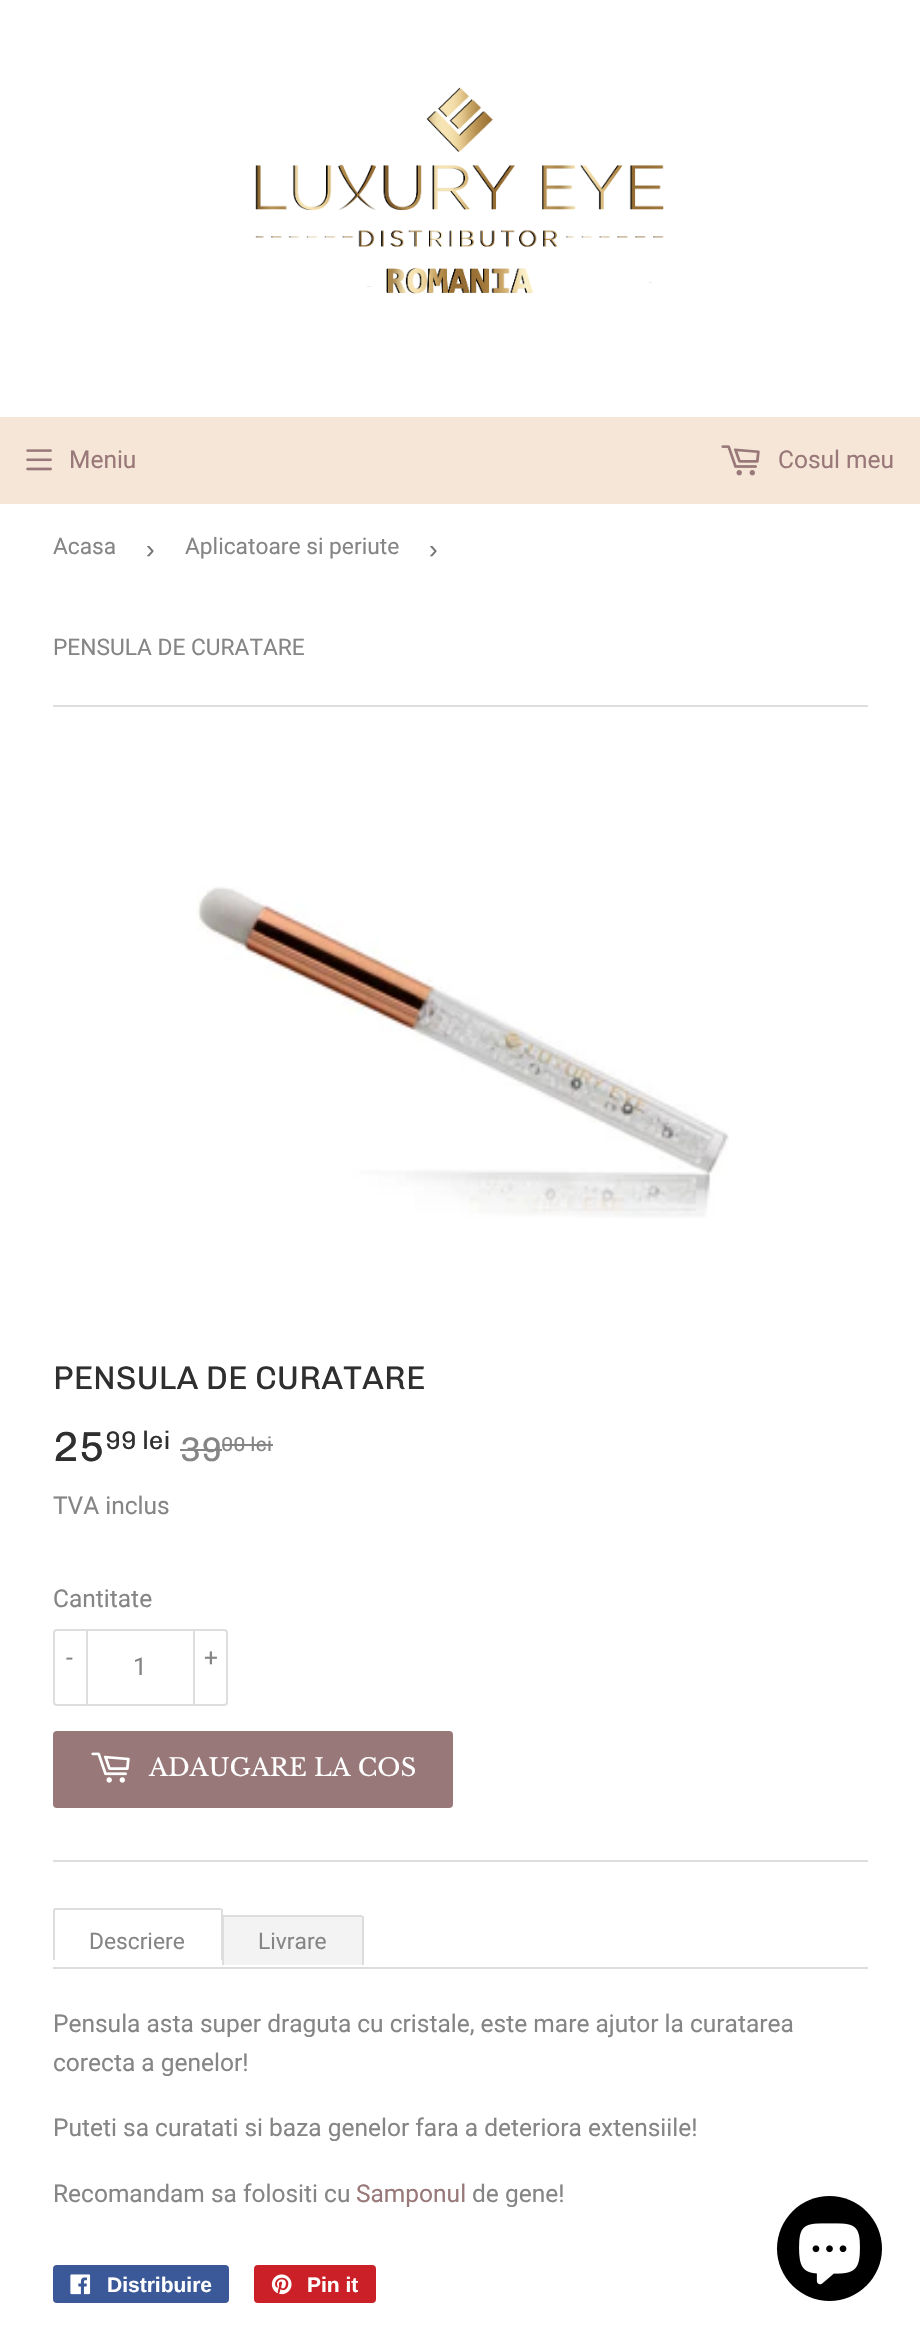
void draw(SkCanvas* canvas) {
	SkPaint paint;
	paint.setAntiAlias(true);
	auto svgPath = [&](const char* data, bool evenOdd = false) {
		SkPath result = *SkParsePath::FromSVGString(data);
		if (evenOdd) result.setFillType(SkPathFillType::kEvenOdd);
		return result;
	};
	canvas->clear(0xffffffff);
	canvas->drawImageRect(SkImages::DeferredFromEncodedData(SkData::MakeFromFileName("img1.png")), SkRect::MakeXYWH(255, 87, 409, 207), SkSamplingOptions());
	paint.setColor(0xfff6e6d8);
	canvas->drawRect(SkRect::MakeXYWH(0, 417, 920, 87), paint);
	canvas->drawImageRect(SkImages::DeferredFromEncodedData(SkData::MakeFromFileName("img2.png")), SkRect::MakeXYWH(26, 449, 26, 22), SkSamplingOptions());
	SkFont f1(fontMgr->matchFamilyStyle("Roboto", SkFontStyle::Normal()), 24.5);
	f1.setSubpixel(true);
	paint.setColor(0xff987878);
	canvas->drawString("Meniu", 69, 468, f1, paint);
	canvas->drawImageRect(SkImages::DeferredFromEncodedData(SkData::MakeFromFileName("img3.png")), SkRect::MakeXYWH(721, 445, 39, 31), SkSamplingOptions());
	canvas->drawString("Cosul meu", 778, 468, f1, paint);
	paint.setColor(0xffdedede);
	canvas->drawRect(SkRect::MakeXYWH(53, 705, 815, 2), paint);
	SkFont f2(fontMgr->matchFamilyStyle("Roboto", SkFontStyle::Normal()), 22.75);
	f2.setSubpixel(true);
	paint.setColor(0xff858585);
	canvas->drawString("Acasa", 53, 554, f2, paint);
	SkFont f3(fontMgr->matchFamilyStyle("Liberation Sans", SkFontStyle::Normal()), 26);
	f3.setSubpixel(true);
	paint.setColor(0xff767676);
	canvas->drawString("›", 146, 558, f3, paint);
	paint.setColor(0xff858585);
	canvas->drawString("Aplicatoare si periute", 185, 554, f2, paint);
	paint.setColor(0xff767676);
	canvas->drawString("›", 429, 558, f3, paint);
	paint.setColor(0xff858585);
	canvas->drawString("PENSULA DE CURATARE", 53, 655, f2, paint);
	canvas->drawImageRect(SkImages::DeferredFromEncodedData(SkData::MakeFromFileName("img4.png")), SkRect::MakeXYWH(196, 886, 533, 332), SkSamplingOptions());
	SkFont f4(fontMgr->matchFamilyStyle("Chivo", SkFontStyle::Normal()), 32.7);
	f4.setSubpixel(true);
	paint.setColor(0xff2f2f2f);
	canvas->drawString("PENSULA DE CURATARE", 53, 1389, f4, paint);
	SkFont f5(fontMgr->matchFamilyStyle("Chivo", SkFontStyle::Normal()), 42);
	f5.setSubpixel(true);
	canvas->drawString("25", 53, 1461, f5, paint);
	SkFont f6(fontMgr->matchFamilyStyle("Chivo", SkFontStyle::Normal()), 25.5);
	f6.setSubpixel(true);
	canvas->drawString("99 lei", 105, 1449, f6, paint);
	SkFont f7(fontMgr->matchFamilyStyle("Chivo", SkFontStyle::Normal()), 34);
	f7.setSubpixel(true);
	paint.setColor(0xff858585);
	canvas->drawString("39", 180, 1461, f7, paint);
	canvas->drawRect(SkRect::MakeXYWH(180, 1449, 42, 2), paint);
	SkFont f8(fontMgr->matchFamilyStyle("Chivo", SkFontStyle::Normal()), 20);
	f8.setSubpixel(true);
	canvas->drawString("00 lei", 221, 1451, f8, paint);
	canvas->drawRect(SkRect::MakeXYWH(222, 1444, 51, 2), paint);
	canvas->drawString("TVA inclus", 53, 1514, f1, paint);
	canvas->drawString("Cantitate", 53, 1607, f1, paint);
	paint.setStroke(true);
	paint.setStrokeWidth(2);
	paint.setColor(0xffdedede);
	canvas->drawRoundRect(SkRect::MakeXYWH(54, 1630, 173, 75), 3, 3, paint);
	paint.setStroke(false);
	canvas->drawRect(SkRect::MakeXYWH(86, 1629, 2, 77), paint);
	paint.setColor(0xff858585);
	canvas->drawString("-", 66, 1666, f1, paint);
	canvas->drawString("1", 133, 1675, f1, paint);
	paint.setColor(0xffdedede);
	canvas->drawRect(SkRect::MakeXYWH(193, 1629, 2, 77), paint);
	paint.setColor(0xff858585);
	canvas->drawString("+", 204, 1666, f1, paint);
	paint.setColor(0xff987878);
	canvas->drawRoundRect(SkRect::MakeXYWH(53, 1731, 400, 77), 4, 4, paint);
	canvas->drawImageRect(SkImages::DeferredFromEncodedData(SkData::MakeFromFileName("img5.png")), SkRect::MakeXYWH(91, 1752, 39, 31), SkSamplingOptions());
	SkFont f9(fontMgr->matchFamilyStyle("Libre Baskerville", SkFontStyle::Normal()), 24.5);
	f9.setSubpixel(true);
	paint.setColor(0xffffffff);
	canvas->drawString("ADAUGARE LA COS", 149, 1776, f9, paint);
	paint.setColor(0xffdedede);
	canvas->drawRect(SkRect::MakeXYWH(53, 1860, 815, 2), paint);
	paint.setColor(0xffdddddd);
	canvas->drawRect(SkRect::MakeXYWH(53, 1967, 815, 2), paint);
	canvas->drawRect(SkRect::MakeXYWH(54, 1908, 167, 2), paint);
	paint.setColor(0xfff3f3f3);
	canvas->drawPath(svgPath("M222 1915H360C362 1915 364 1917 364 1919V1965H222Z"), paint);
	paint.setColor(0xffdddddd);
	canvas->drawRect(SkRect::MakeXYWH(222, 1915, 140, 2), paint);
	canvas->drawRect(SkRect::MakeXYWH(222, 1915, 2, 50), paint);
	canvas->drawRect(SkRect::MakeXYWH(221, 1909, 2, 51), paint);
	canvas->drawRect(SkRect::MakeXYWH(53, 1909, 2, 51), paint);
	paint.setColor(0xff858585);
	canvas->drawString("Descriere", 89, 1949, f2, paint);
	paint.setColor(0xffdddddd);
	canvas->drawRect(SkRect::MakeXYWH(362, 1916, 2, 49), paint);
	paint.setColor(0xff858585);
	canvas->drawString("Livrare", 258, 1949, f2, paint);
	canvas->drawString("Pensula asta super draguta cu cristale, este mare ajutor la curatarea", 53, 2032, f1, paint);
	canvas->drawString("corecta a genelor!", 53, 2071, f1, paint);
	canvas->drawString("Puteti sa curatati si baza genelor fara a deteriora extensiile!", 53, 2136, f1, paint);
	canvas->drawString("Recomandam sa folositi cu", 53, 2202, f1, paint);
	paint.setColor(0xff987878);
	canvas->drawString("Samponul", 356, 2202, f1, paint);
	paint.setColor(0xff858585);
	canvas->drawString("de gene!", 472, 2202, f1, paint);
	paint.setColor(0xff3b5998);
	canvas->drawRoundRect(SkRect::MakeXYWH(53, 2265, 176, 38), 4, 4, paint);
	canvas->drawImageRect(SkImages::DeferredFromEncodedData(SkData::MakeFromFileName("img6.png")), SkRect::MakeXYWH(70, 2274, 21, 21), SkSamplingOptions());
	SkFont f10(fontMgr->matchFamilyStyle("Liberation Sans", SkFontStyle::Bold()), 21);
	f10.setSubpixel(true);
	paint.setColor(0xffffffff);
	canvas->drawString("Distribuire", 107, 2292, f10, paint);
	paint.setColor(0xffcb2027);
	canvas->drawRoundRect(SkRect::MakeXYWH(254, 2265, 122, 38), 4, 4, paint);
	canvas->drawImageRect(SkImages::DeferredFromEncodedData(SkData::MakeFromFileName("img7.png")), SkRect::MakeXYWH(271, 2274, 21, 21), SkSamplingOptions());
	paint.setColor(0xffffffff);
	canvas->drawString("Pin it", 307, 2292, f10, paint);
	paint.setColor(0xff000000);
	canvas->drawCircle(829.5, 2248.5, 52.5, paint);
	canvas->drawImageRect(SkImages::DeferredFromEncodedData(SkData::MakeFromFileName("img8.png")), SkRect::MakeXYWH(799, 2223, 61, 62), SkSamplingOptions());
}
